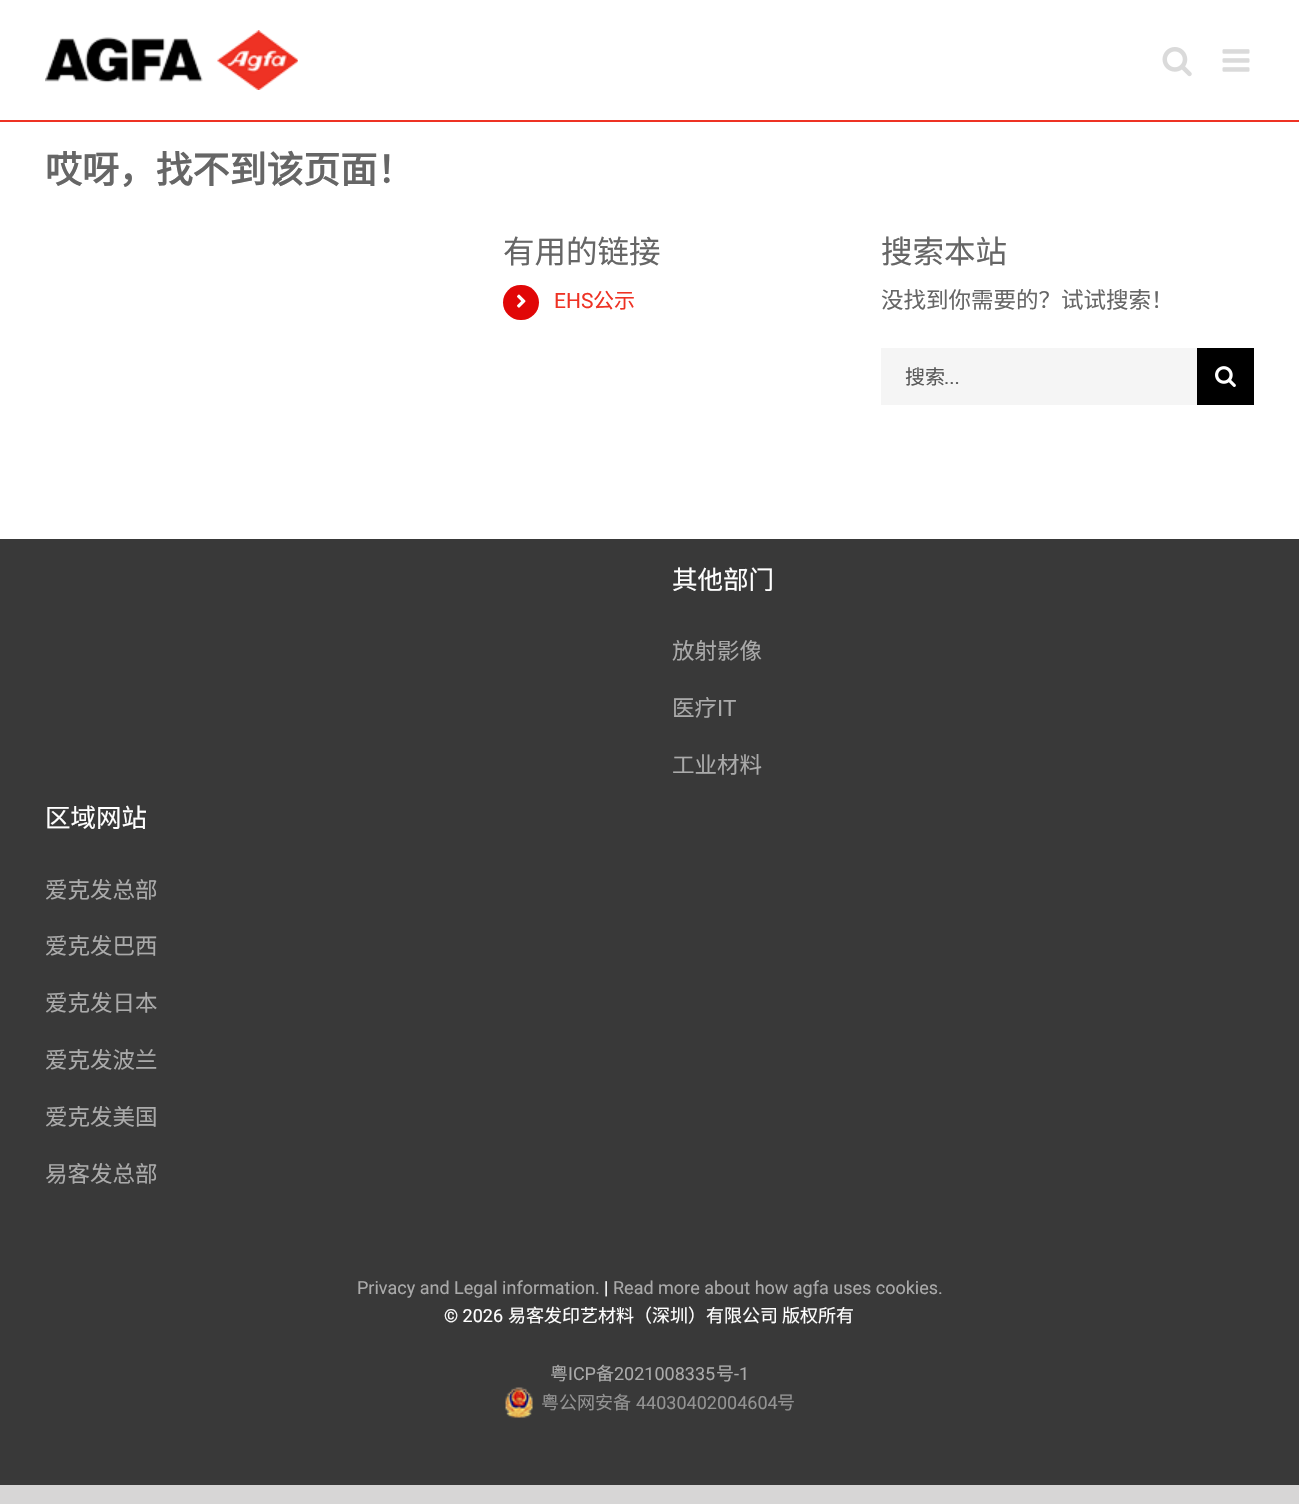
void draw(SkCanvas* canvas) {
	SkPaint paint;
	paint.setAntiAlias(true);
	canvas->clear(0xffd7d6d6);
	paint.setColor(0xffffffff);
	canvas->drawRect(SkRect::MakeXYWH(0, 0, 1299, 539), paint);
	paint.setColor(0xffee3224);
	canvas->drawRect(SkRect::MakeXYWH(0, 120, 1299, 2), paint);
	canvas->drawImageRect(SkImages::DeferredFromEncodedData(SkData::MakeFromFileName("img1.png")), SkRect::MakeXYWH(45, 30, 253, 60), SkSamplingOptions());
	canvas->drawImageRect(SkImages::DeferredFromEncodedData(SkData::MakeFromFileName("img2.png")), SkRect::MakeXYWH(1162, 47, 30, 30), SkSamplingOptions());
	canvas->drawImageRect(SkImages::DeferredFromEncodedData(SkData::MakeFromFileName("img3.png")), SkRect::MakeXYWH(1222, 49, 28, 23), SkSamplingOptions());
	SkFont f1(fontMgr->matchFamilyStyle("Noto Sans CJK SC", SkFontStyle::Bold()), 36.9);
	f1.setSubpixel(true);
	paint.setColor(0xff666666);
	canvas->drawString("哎呀，找不到该页面！", 45, 183, f1, paint);
	SkFont f2(fontMgr->matchFamilyStyle("Noto Sans CJK SC", SkFontStyle::Normal()), 31.5);
	f2.setSubpixel(true);
	canvas->drawString("有用的链接", 503, 263, f2, paint);
	paint.setColor(0xffe10707);
	canvas->drawRoundRect(SkRect::MakeXYWH(503, 285, 36, 35), 17.5, 17.5, paint);
	canvas->drawImageRect(SkImages::DeferredFromEncodedData(SkData::MakeFromFileName("img4.png")), SkRect::MakeXYWH(517, 294, 9, 14), SkSamplingOptions());
	SkFont f3(fontMgr->matchFamilyStyle("Roboto", SkFontStyle::Normal()), 21);
	f3.setSubpixel(true);
	paint.setColor(0xffee3224);
	canvas->drawString("EHS", 554, 308, f3, paint);
	SkFont f4(fontMgr->matchFamilyStyle("Noto Sans CJK SC", SkFontStyle::Normal()), 21);
	f4.setSubpixel(true);
	canvas->drawString("公示", 593, 308, f4, paint);
	paint.setColor(0xff666666);
	canvas->drawString("搜索本站", 881, 263, f2, paint);
	SkFont f5(fontMgr->matchFamilyStyle("Noto Sans CJK SC", SkFontStyle::Normal()), 22.5);
	f5.setSubpixel(true);
	canvas->drawString("没找到你需要的？试试搜索！", 881, 308, f5, paint);
	paint.setColor(0xfff5f5f5);
	canvas->drawRect(SkRect::MakeXYWH(881, 348, 316, 57), paint);
	SkFont f6(fontMgr->matchFamilyStyle("Noto Sans CJK SC", SkFontStyle::Normal()), 20);
	f6.setSubpixel(true);
	paint.setColor(0xff595959);
	canvas->drawString("搜索", 905, 384, f6, paint);
	SkFont f7(fontMgr->matchFamilyStyle("Roboto", SkFontStyle::Normal()), 20);
	f7.setSubpixel(true);
	canvas->drawString("...", 944, 384, f7, paint);
	paint.setColor(0xff000000);
	canvas->drawRect(SkRect::MakeXYWH(1197, 348, 57, 57), paint);
	canvas->drawImageRect(SkImages::DeferredFromEncodedData(SkData::MakeFromFileName("img5.png")), SkRect::MakeXYWH(1215, 366, 21, 21), SkSamplingOptions());
	paint.setColor(0xff393939);
	canvas->drawRect(SkRect::MakeXYWH(0, 539, 1299, 946), paint);
	SkFont f8(fontMgr->matchFamilyStyle("Noto Sans CJK SC", SkFontStyle::Normal()), 25.5);
	f8.setSubpixel(true);
	paint.setColor(0xffffffff);
	canvas->drawString("其他部门", 672, 589, f8, paint);
	paint.setColor(0xffaaaaaa);
	canvas->drawString("放射影像", 672, 659, f5, paint);
	canvas->drawString("医疗", 672, 716, f5, paint);
	SkFont f9(fontMgr->matchFamilyStyle("Roboto", SkFontStyle::Normal()), 22.5);
	f9.setSubpixel(true);
	canvas->drawString("IT", 717, 716, f9, paint);
	canvas->drawString("工业材料", 672, 773, f5, paint);
	paint.setColor(0xffffffff);
	canvas->drawString("区域网站", 45, 827, f8, paint);
	paint.setColor(0xffaaaaaa);
	canvas->drawString("爱克发总部", 45, 898, f5, paint);
	canvas->drawString("爱克发巴西", 45, 954, f5, paint);
	canvas->drawString("爱克发日本", 45, 1011, f5, paint);
	canvas->drawString("爱克发波兰", 45, 1068, f5, paint);
	canvas->drawString("爱克发美国", 45, 1125, f5, paint);
	canvas->drawString("易客发总部", 45, 1182, f5, paint);
	SkFont f10(fontMgr->matchFamilyStyle("Roboto", SkFontStyle::Normal()), 18);
	f10.setSubpixel(true);
	canvas->drawString("Privacy and Legal information.", 357, 1294, f10, paint);
	paint.setColor(0xffffffff);
	canvas->drawString("|", 604, 1294, f10, paint);
	paint.setColor(0xffaaaaaa);
	canvas->drawString("Read more about how agfa uses cookies.", 613, 1294, f10, paint);
	paint.setColor(0xffffffff);
	canvas->drawString("© 2026", 444, 1322, f10, paint);
	SkFont f11(fontMgr->matchFamilyStyle("Noto Sans CJK SC", SkFontStyle::Normal()), 18);
	f11.setSubpixel(true);
	canvas->drawString("易客发印艺材料（深圳）有限公司 版权所有", 508, 1322, f11, paint);
	paint.setColor(0xffaaaaaa);
	canvas->drawString("粤", 550, 1380, f11, paint);
	canvas->drawString("ICP", 568, 1380, f10, paint);
	canvas->drawString("备", 596, 1380, f11, paint);
	canvas->drawString("2021008335", 614, 1380, f10, paint);
	canvas->drawString("号", 716, 1380, f11, paint);
	canvas->drawString("-1", 734, 1380, f10, paint);
	canvas->drawImageRect(SkImages::DeferredFromEncodedData(SkData::MakeFromFileName("img6.png")), SkRect::MakeXYWH(505, 1387, 28, 31), SkSamplingOptions());
	paint.setColor(0xff939393);
	canvas->drawString("粤公网安备", 541, 1409, f11, paint);
	canvas->drawString("44030402004604", 636, 1409, f10, paint);
	canvas->drawString("号", 777, 1409, f11, paint);
}
